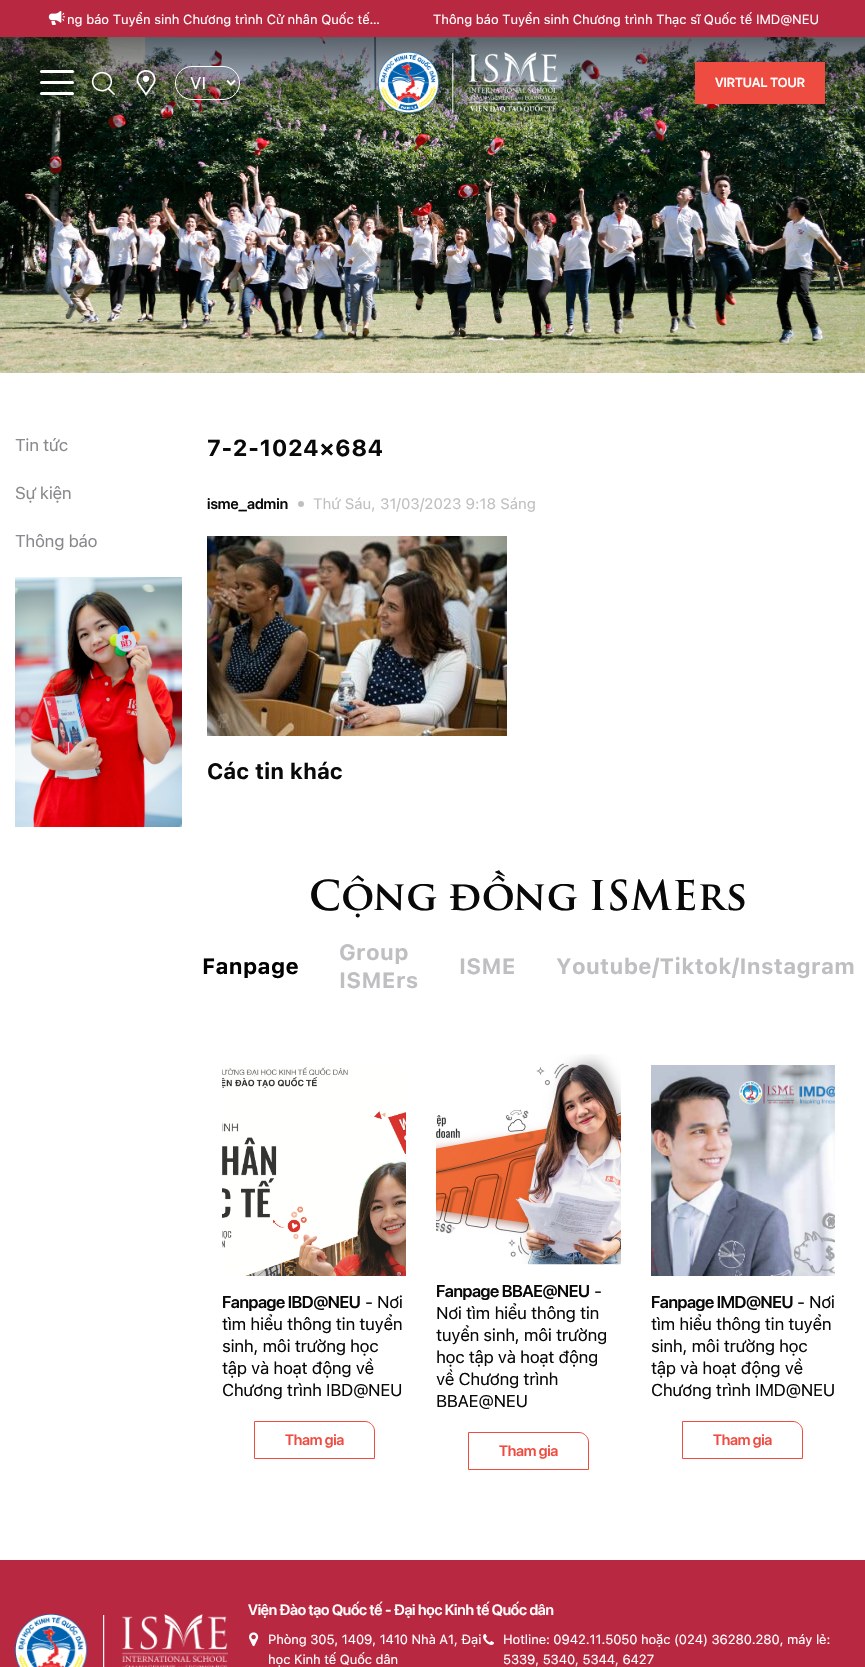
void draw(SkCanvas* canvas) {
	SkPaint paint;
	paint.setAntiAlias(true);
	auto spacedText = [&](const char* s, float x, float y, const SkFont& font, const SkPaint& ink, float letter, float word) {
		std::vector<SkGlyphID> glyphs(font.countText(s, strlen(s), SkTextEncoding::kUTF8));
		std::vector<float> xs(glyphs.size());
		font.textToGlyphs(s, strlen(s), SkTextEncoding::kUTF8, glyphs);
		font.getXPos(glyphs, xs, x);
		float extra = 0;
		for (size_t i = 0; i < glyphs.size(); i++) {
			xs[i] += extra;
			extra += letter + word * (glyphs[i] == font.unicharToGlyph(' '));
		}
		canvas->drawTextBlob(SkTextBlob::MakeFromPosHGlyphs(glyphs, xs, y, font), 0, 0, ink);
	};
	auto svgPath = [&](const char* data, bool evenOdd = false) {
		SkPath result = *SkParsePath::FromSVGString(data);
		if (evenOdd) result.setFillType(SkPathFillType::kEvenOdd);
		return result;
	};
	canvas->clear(0xffffffff);
	paint.setColor(0xffb82841);
	canvas->drawRect(SkRect::MakeXYWH(0, 0, 865, 37), paint);
	canvas->drawImageRect(SkImages::DeferredFromEncodedData(SkData::MakeFromFileName("img1.png")), SkRect::MakeXYWH(48, 11, 18, 14), SkSamplingOptions());
	SkFont f1(fontMgr->matchFamilyStyle("SF Pro Text", SkFontStyle::Normal()), 13);
	f1.setSubpixel(true);
	paint.setColor(0xffffffff);
	canvas->drawString("ng báo Tuyển sinh Chương trình Cử nhân Quốc tế…", 67, 24, f1, paint);
	canvas->drawString("Thông báo Tuyển sinh Chương trình Thạc sĩ Quốc tế IMD@NEU", 433, 24, f1, paint);
	canvas->drawImageRect(SkImages::DeferredFromEncodedData(SkData::MakeFromFileName("img5.png")), SkRect::MakeXYWH(0, 37, 865, 336), SkSamplingOptions());
	canvas->drawRoundRect(SkRect::MakeXYWH(40, 70, 34, 3), 1.5, 1.5, paint);
	canvas->drawRoundRect(SkRect::MakeXYWH(40, 81, 34, 3), 1.5, 1.5, paint);
	canvas->drawRoundRect(SkRect::MakeXYWH(40, 92, 34, 3), 1.5, 1.5, paint);
	canvas->drawImageRect(SkImages::DeferredFromEncodedData(SkData::MakeFromFileName("img2.png")), SkRect::MakeXYWH(91, 71, 24, 24), SkSamplingOptions());
	canvas->drawImageRect(SkImages::DeferredFromEncodedData(SkData::MakeFromFileName("img3.png")), SkRect::MakeXYWH(136, 70, 20, 26), SkSamplingOptions());
	paint.setStroke(true);
	paint.setStrokeWidth(1);
	canvas->drawRoundRect(SkRect::MakeXYWH(175.5, 66.5, 64, 33), 16.5, 16.5, paint);
	paint.setStrokeWidth(2);
	canvas->drawPath(svgPath("M227 80.5L231 84.5L235 80.5"), paint);
	SkFont f2(fontMgr->matchFamilyStyle("SF Pro Text", SkFontStyle::Normal()), 17);
	f2.setSubpixel(true);
	paint.setStroke(false);
	canvas->drawString("VI", 190, 89, f2, paint);
	canvas->drawImageRect(SkImages::DeferredFromEncodedData(SkData::MakeFromFileName("img4.png")), SkRect::MakeXYWH(378, 52, 180, 61), SkSamplingOptions());
	paint.setColor(0xffee4b41);
	canvas->drawRect(SkRect::MakeXYWH(695, 62, 130, 42), paint);
	SkFont f3(fontMgr->matchFamilyStyle("SF Pro Display", SkFontStyle(600, SkFontStyle::kNormal_Width, SkFontStyle::kUpright_Slant)), 13);
	f3.setSubpixel(true);
	paint.setColor(0xffffffff);
	canvas->drawString("VIRTUAL TOUR", 715, 87, f3, paint);
	paint.setColor(0xff8a8a8e);
	spacedText("Tin tức", 15, 451, f2, paint, -0.4, 0);
	spacedText("Sự kiện", 15, 499, f2, paint, -0.4, 0);
	spacedText("Thông báo", 15, 547, f2, paint, -0.4, 0);
	canvas->drawImageRect(SkImages::DeferredFromEncodedData(SkData::MakeFromFileName("img6.png")), SkRect::MakeXYWH(15, 577, 167, 250), SkSamplingOptions());
	SkFont f4(fontMgr->matchFamilyStyle("SF Pro Text", SkFontStyle::Bold()), 23);
	f4.setSubpixel(true);
	paint.setColor(0xff090909);
	spacedText("7-2-1024×684", 207, 456, f4, paint, 0.4, 0);
	SkFont f5(fontMgr->matchFamilyStyle("SF Pro Display", SkFontStyle(600, SkFontStyle::kNormal_Width, SkFontStyle::kUpright_Slant)), 15);
	f5.setSubpixel(true);
	canvas->drawString("isme_admin", 207, 509, f5, paint);
	paint.setColor(0xffbfbfc1);
	canvas->drawCircle(301, 504, 3, paint);
	SkFont f6(fontMgr->matchFamilyStyle("SF Pro Text", SkFontStyle::Normal()), 15);
	f6.setSubpixel(true);
	canvas->drawString("Thứ Sáu, 31/03/2023 9:18 Sáng", 313, 509, f6, paint);
	canvas->drawImageRect(SkImages::DeferredFromEncodedData(SkData::MakeFromFileName("img7.png")), SkRect::MakeXYWH(207, 536, 300, 200), SkSamplingOptions());
	SkFont f7(fontMgr->matchFamilyStyle("SF Pro Text", SkFontStyle::Bold()), 22);
	f7.setSubpixel(true);
	paint.setColor(0xff090909);
	canvas->drawString("Các tin khác", 207, 779, f7, paint);
	SkFont f8(fontMgr->matchFamilyStyle("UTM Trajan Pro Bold", SkFontStyle::Bold()), 40);
	f8.setSubpixel(true);
	spacedText("Cộng đồng ISMErs", 309, 910, f8, paint, 0.25, 0);
	paint.setColor(0xff000000);
	spacedText("Fanpage", 202, 974, f7, paint, 0.35, 0);
	paint.setColor(0xffbfbfc1);
	spacedText("Group", 339, 960, f7, paint, 0.35, 0);
	spacedText("ISMErs", 339, 988, f7, paint, 0.35, 0);
	spacedText("ISME", 459, 974, f7, paint, 0.35, 0);
	spacedText("Youtube/Tiktok/Instagram", 556, 974, f7, paint, 0.35, 0);
	canvas->drawImageRect(SkImages::DeferredFromEncodedData(SkData::MakeFromFileName("img8.png")), SkRect::MakeXYWH(222, 1067, 184, 209), SkSamplingOptions());
	SkFont f9(fontMgr->matchFamilyStyle("SF Pro Display", SkFontStyle(600, SkFontStyle::kNormal_Width, SkFontStyle::kUpright_Slant)), 17);
	f9.setSubpixel(true);
	paint.setColor(0xff090909);
	spacedText("Fanpage IBD@NEU", 222, 1308, f9, paint, -0.4, 0);
	spacedText("- Nơi", 365, 1308, f2, paint, -0.4, 0);
	spacedText("tìm hiểu thông tin tuyển", 222, 1330, f2, paint, -0.4, 0);
	spacedText("sinh, môi trường học", 222, 1352, f2, paint, -0.4, 0);
	spacedText("tập và hoạt động về", 222, 1374, f2, paint, -0.4, 0);
	spacedText("Chương trình IBD@NEU", 222, 1396, f2, paint, -0.4, 0);
	paint.setStroke(true);
	paint.setStrokeWidth(1);
	paint.setColor(0xffee4b41);
	canvas->drawPath(svgPath("M254.5 1421.5H365C370 1421.5 374.5 1426 374.5 1431V1458.5H254.5Z"), paint);
	paint.setStroke(false);
	spacedText("Tham gia", 285, 1445, f5, paint, -0.25, 0);
	canvas->drawImageRect(SkImages::DeferredFromEncodedData(SkData::MakeFromFileName("img9.png")), SkRect::MakeXYWH(436, 1054, 185, 211), SkSamplingOptions());
	paint.setColor(0xff090909);
	spacedText("Fanpage BBAE@NEU", 436, 1297, f9, paint, -0.4, 0);
	spacedText("-", 594, 1297, f2, paint, -0.4, 0);
	spacedText("Nơi tìm hiểu thông tin", 436, 1319, f2, paint, -0.4, 0);
	spacedText("tuyển sinh, môi trường", 436, 1341, f2, paint, -0.4, 0);
	spacedText("học tập và hoạt động", 436, 1363, f2, paint, -0.4, 0);
	spacedText("về Chương trình", 436, 1385, f2, paint, -0.4, 0);
	spacedText("BBAE@NEU", 436, 1407, f2, paint, -0.4, 0);
	paint.setStroke(true);
	paint.setColor(0xffee4b41);
	canvas->drawPath(svgPath("M468.5 1432.5H579C584 1432.5 588.5 1437 588.5 1442V1469.5H468.5Z"), paint);
	paint.setStroke(false);
	spacedText("Tham gia", 499, 1456, f5, paint, -0.25, 0);
	canvas->drawImageRect(SkImages::DeferredFromEncodedData(SkData::MakeFromFileName("img10.png")), SkRect::MakeXYWH(651, 1065, 184, 211), SkSamplingOptions());
	paint.setColor(0xff090909);
	spacedText("Fanpage IMD@NEU", 651, 1308, f9, paint, -0.4, 0);
	spacedText("- Nơi", 797, 1308, f2, paint, -0.4, 0);
	spacedText("tìm hiểu thông tin tuyển", 651, 1330, f2, paint, -0.4, 0);
	spacedText("sinh, môi trường học", 651, 1352, f2, paint, -0.4, 0);
	spacedText("tập và hoạt động về", 651, 1374, f2, paint, -0.4, 0);
	spacedText("Chương trình IMD@NEU", 651, 1396, f2, paint, -0.4, 0);
	paint.setStroke(true);
	paint.setColor(0xffee4b41);
	canvas->drawPath(svgPath("M682.5 1421.5H793C798 1421.5 802.5 1426 802.5 1431V1458.5H682.5Z"), paint);
	paint.setStroke(false);
	spacedText("Tham gia", 713, 1445, f5, paint, -0.25, 0);
	paint.setColor(0xffb82841);
	canvas->drawRect(SkRect::MakeXYWH(0, 1560, 865, 107), paint);
	canvas->drawImageRect(SkImages::DeferredFromEncodedData(SkData::MakeFromFileName("img11.png")), SkRect::MakeXYWH(15, 1614, 213, 53), SkSamplingOptions());
	paint.setColor(0xffffffff);
	spacedText("Viện Đào tạo Quốc tế - Đại học Kinh tế Quốc dân", 248, 1615, f5, paint, -0.25, 0);
	canvas->drawImageRect(SkImages::DeferredFromEncodedData(SkData::MakeFromFileName("img12.png")), SkRect::MakeXYWH(249, 1632, 10, 15), SkSamplingOptions());
	spacedText("Phòng 305, 1409, 1410 Nhà A1, Đại", 268, 1644, f1, paint, -0.08, 0);
	spacedText("học Kinh tế Quốc dân", 268, 1664, f1, paint, -0.08, 0);
	canvas->drawImageRect(SkImages::DeferredFromEncodedData(SkData::MakeFromFileName("img13.png")), SkRect::MakeXYWH(483, 1634, 11, 11), SkSamplingOptions());
	spacedText("Hotline: 0942.11.5050 hoặc (024) 36280.280, máy lẻ:", 503, 1644, f1, paint, -0.08, 0);
	spacedText("5339, 5340, 5344, 6427", 503, 1664, f1, paint, -0.08, 0);
}
